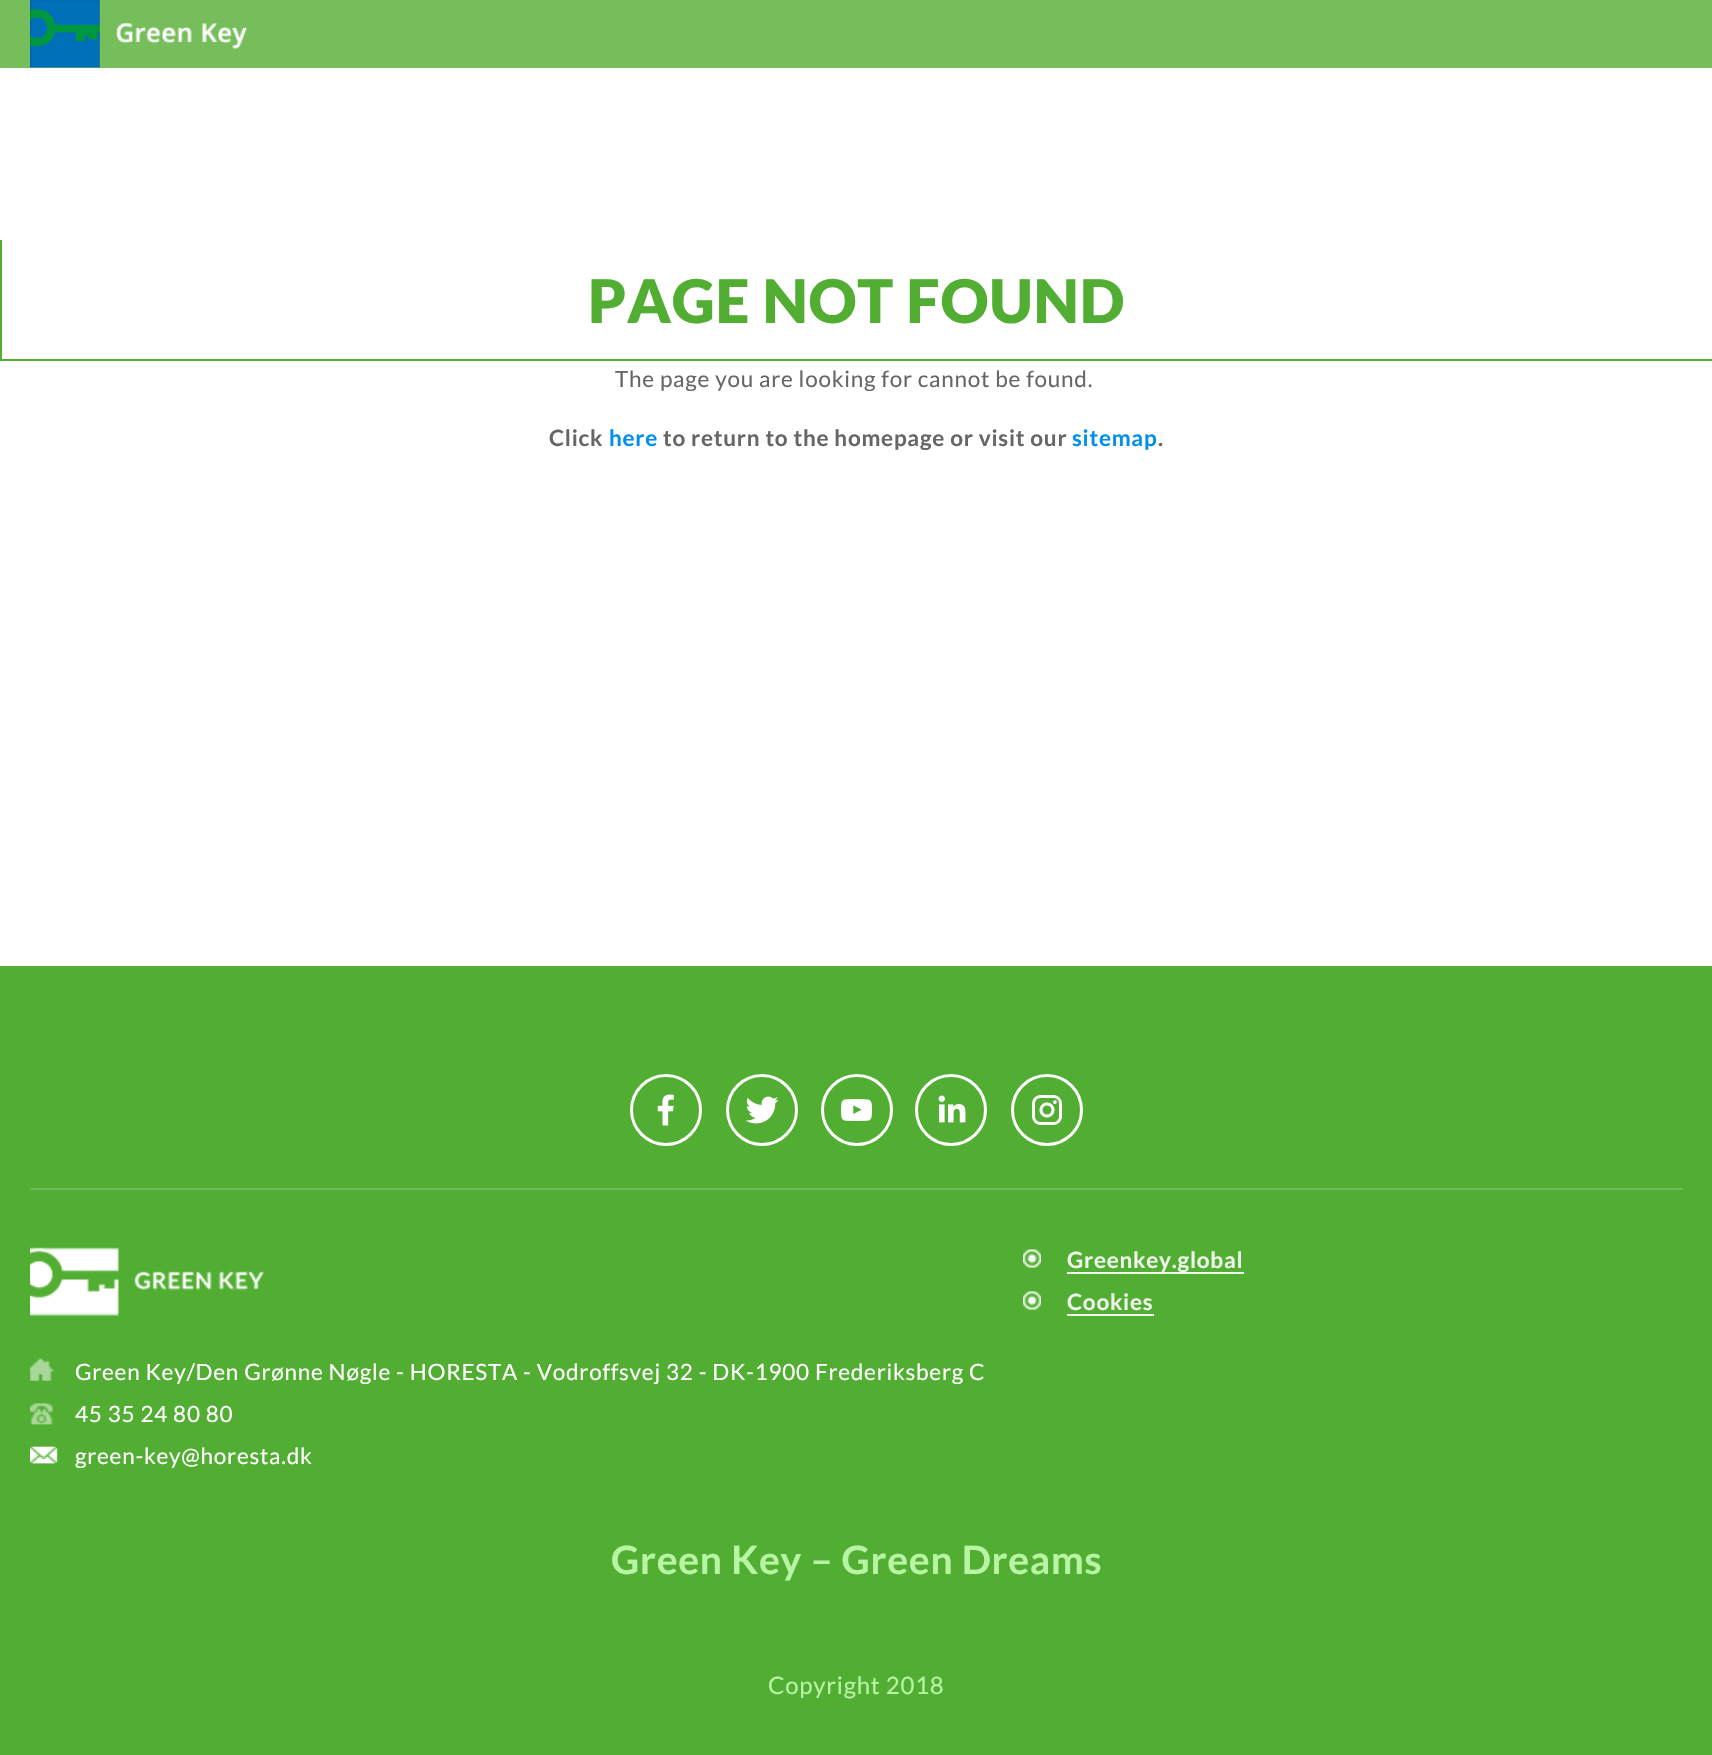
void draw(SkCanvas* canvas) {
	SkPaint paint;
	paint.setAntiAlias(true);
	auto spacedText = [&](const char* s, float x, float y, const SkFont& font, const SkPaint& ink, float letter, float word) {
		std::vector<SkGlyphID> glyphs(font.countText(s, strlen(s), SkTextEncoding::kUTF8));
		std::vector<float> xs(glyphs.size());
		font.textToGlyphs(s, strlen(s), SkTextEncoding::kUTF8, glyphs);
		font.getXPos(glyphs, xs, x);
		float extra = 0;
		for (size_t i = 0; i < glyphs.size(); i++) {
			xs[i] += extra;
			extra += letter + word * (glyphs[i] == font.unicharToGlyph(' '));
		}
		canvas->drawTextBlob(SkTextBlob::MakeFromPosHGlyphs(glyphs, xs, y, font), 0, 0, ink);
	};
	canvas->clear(0xffffffff);
	paint.setColor(0xff75be5b);
	canvas->drawRect(SkRect::MakeXYWH(0, 0, 1712, 68), paint);
	canvas->drawImageRect(SkImages::DeferredFromEncodedData(SkData::MakeFromFileName("img1.png")), SkRect::MakeXYWH(30, 0, 217, 68), SkSamplingOptions());
	paint.setColor(0xff51ae32);
	canvas->drawRect(SkRect::MakeXYWH(0, 240, 2, 120), paint);
	SkFont f1(fontMgr->matchFamilyStyle("Lato", SkFontStyle(900, SkFontStyle::kNormal_Width, SkFontStyle::kUpright_Slant)), 60);
	f1.setSubpixel(true);
	spacedText("PAGE NOT FOUND", 588, 323, f1, paint, 0.75, 0);
	canvas->drawRect(SkRect::MakeXYWH(0, 359, 1712, 2), paint);
	SkFont f2(fontMgr->matchFamilyStyle("Lato", SkFontStyle::Normal()), 22.5);
	f2.setSubpixel(true);
	paint.setColor(0xff666666);
	spacedText("The page you are looking for cannot be found.", 615, 387, f2, paint, 0.75, 0);
	SkFont f3(fontMgr->matchFamilyStyle("Lato", SkFontStyle::Bold()), 22.5);
	f3.setSubpixel(true);
	spacedText("Click", 549, 446, f3, paint, 0.75, 0);
	paint.setColor(0xff0090ec);
	spacedText("here", 609, 446, f3, paint, 0.75, 0);
	paint.setColor(0xff666666);
	spacedText("to return to the homepage or visit our", 663, 446, f3, paint, 0.75, 0);
	paint.setColor(0xff0090ec);
	spacedText("sitemap", 1072, 446, f3, paint, 0.75, 0);
	paint.setColor(0xff666666);
	spacedText(".", 1158, 446, f3, paint, 0.75, 0);
	paint.setColor(0xff51ae32);
	canvas->drawRect(SkRect::MakeXYWH(0, 966, 1712, 789), paint);
	paint.setColor(0xff6dbb54);
	canvas->drawRect(SkRect::MakeXYWH(30, 1188, 1653, 2), paint);
	paint.setStroke(true);
	paint.setStrokeWidth(3);
	paint.setColor(0xffffffff);
	canvas->drawCircle(666, 1110, 34.5, paint);
	canvas->drawImageRect(SkImages::DeferredFromEncodedData(SkData::MakeFromFileName("img2.png")), SkRect::MakeXYWH(657, 1094, 17, 32), SkSamplingOptions());
	canvas->drawCircle(762, 1110, 34.5, paint);
	canvas->drawImageRect(SkImages::DeferredFromEncodedData(SkData::MakeFromFileName("img3.png")), SkRect::MakeXYWH(745, 1096, 34, 28), SkSamplingOptions());
	canvas->drawCircle(857, 1110, 34.5, paint);
	canvas->drawImageRect(SkImages::DeferredFromEncodedData(SkData::MakeFromFileName("img4.png")), SkRect::MakeXYWH(841, 1099, 31, 22), SkSamplingOptions());
	canvas->drawCircle(951, 1110, 34.5, paint);
	canvas->drawImageRect(SkImages::DeferredFromEncodedData(SkData::MakeFromFileName("img5.png")), SkRect::MakeXYWH(938, 1095, 28, 28), SkSamplingOptions());
	canvas->drawCircle(1047, 1110, 34.5, paint);
	canvas->drawImageRect(SkImages::DeferredFromEncodedData(SkData::MakeFromFileName("img6.png")), SkRect::MakeXYWH(1032, 1095, 30, 30), SkSamplingOptions());
	canvas->drawImageRect(SkImages::DeferredFromEncodedData(SkData::MakeFromFileName("img7.png")), SkRect::MakeXYWH(1023, 1249, 18, 19), SkSamplingOptions());
	paint.setStroke(false);
	paint.setColor(0xffeef7eb);
	canvas->drawRect(SkRect::MakeXYWH(1067, 1272, 177, 2), paint);
	spacedText("Greenkey.global", 1067, 1268, f3, paint, 0.75, 0);
	canvas->drawImageRect(SkImages::DeferredFromEncodedData(SkData::MakeFromFileName("img7.png")), SkRect::MakeXYWH(1023, 1291, 18, 19), SkSamplingOptions());
	spacedText("Cookies", 1067, 1310, f3, paint, 0.75, 0);
	canvas->drawRect(SkRect::MakeXYWH(1067, 1314, 87, 2), paint);
	canvas->drawImageRect(SkImages::DeferredFromEncodedData(SkData::MakeFromFileName("img8.png")), SkRect::MakeXYWH(30, 1247, 235, 69), SkSamplingOptions());
	canvas->drawImageRect(SkImages::DeferredFromEncodedData(SkData::MakeFromFileName("img9.png")), SkRect::MakeXYWH(30, 1358, 25, 23), SkSamplingOptions());
	paint.setColor(0xffffffff);
	spacedText("Green Key/Den Grønne Nøgle - HORESTA - Vodroffsvej 32 - DK-1900 Frederiksberg C", 75, 1380, f2, paint, 0.75, 0);
	canvas->drawImageRect(SkImages::DeferredFromEncodedData(SkData::MakeFromFileName("img10.png")), SkRect::MakeXYWH(30, 1403, 23, 22), SkSamplingOptions());
	spacedText("45 35 24 80 80", 75, 1422, f2, paint, 0.75, 0);
	canvas->drawImageRect(SkImages::DeferredFromEncodedData(SkData::MakeFromFileName("img11.png")), SkRect::MakeXYWH(30, 1446, 28, 18), SkSamplingOptions());
	spacedText("green-key@horesta.dk", 75, 1464, f2, paint, 0.75, 0);
	SkFont f4(fontMgr->matchFamilyStyle("Lato", SkFontStyle::Bold()), 39);
	f4.setSubpixel(true);
	paint.setColor(0xffb7f4a3);
	spacedText("Green Key – Green Dreams", 611, 1574, f4, paint, 0.75, 0);
	SkFont f5(fontMgr->matchFamilyStyle("Lato", SkFontStyle::Normal()), 24);
	f5.setSubpixel(true);
	spacedText("Copyright 2018", 768, 1694, f5, paint, 0.75, 0);
}
